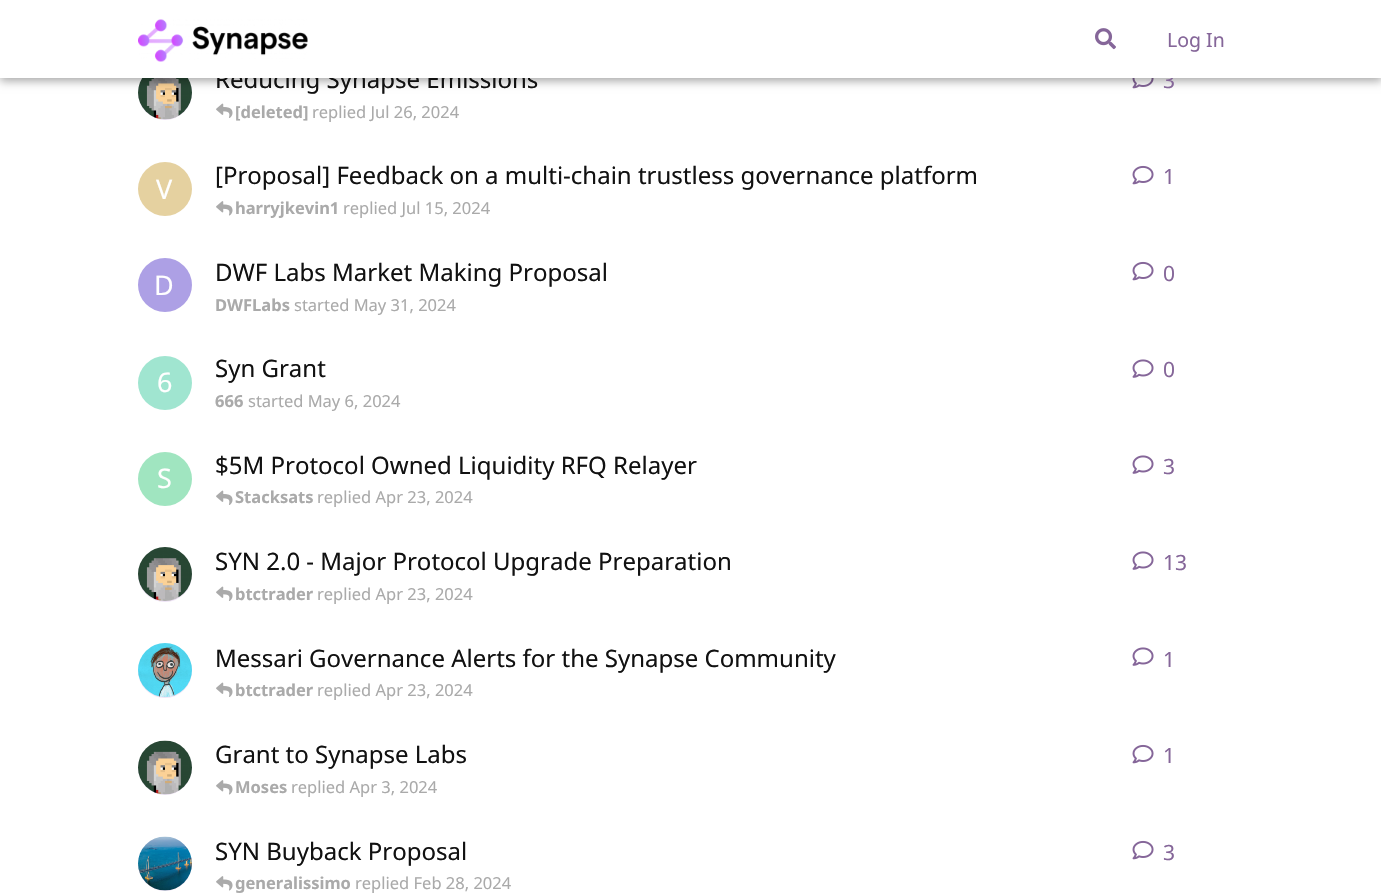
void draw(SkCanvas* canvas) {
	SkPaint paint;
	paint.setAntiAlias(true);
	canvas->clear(0xffffffff);
	paint.setColor(0xffefe4f6);
	canvas->drawCircle(165, 93, 27, paint);
	canvas->drawImageRect(SkImages::DeferredFromEncodedData(SkData::MakeFromFileName("img3.png")), SkRect::MakeXYWH(138, 78, 54, 42), SkSamplingOptions());
	canvas->drawImageRect(SkImages::DeferredFromEncodedData(SkData::MakeFromFileName("img5.png")), SkRect::MakeXYWH(1132, 78, 22, 11), SkSamplingOptions());
	paint.setColor(0x59000000);
	paint.setMaskFilter(SkMaskFilter::MakeBlur(kNormal_SkBlurStyle, 4.5));
	canvas->drawRect(SkRect::MakeXYWH(0, 3, 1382, 78), paint);
	paint.setMaskFilter(nullptr);
	SkFont f1(fontMgr->matchFamilyStyle("Noto Sans", SkFontStyle::Normal()), 24);
	f1.setSubpixel(true);
	paint.setColor(0xff111111);
	canvas->drawString("Reducing Synapse Emissions", 215, 88, f1, paint);
	SkFont f2(fontMgr->matchFamilyStyle("Noto Sans", SkFontStyle::Normal()), 21);
	f2.setSubpixel(true);
	paint.setColor(0xff856699);
	canvas->drawString("3", 1163, 88, f2, paint);
	paint.setColor(0xffffffff);
	canvas->drawRect(SkRect::MakeXYWH(0, 0, 1381, 78), paint);
	canvas->drawImageRect(SkImages::DeferredFromEncodedData(SkData::MakeFromFileName("img1.png")), SkRect::MakeXYWH(138, 19, 170, 43), SkSamplingOptions());
	canvas->drawImageRect(SkImages::DeferredFromEncodedData(SkData::MakeFromFileName("img2.png")), SkRect::MakeXYWH(1095, 28, 21, 22), SkSamplingOptions());
	SkFont f3(fontMgr->matchFamilyStyle("Noto Sans", SkFontStyle::Normal()), 19.5);
	f3.setSubpixel(true);
	paint.setColor(0xff856699);
	canvas->drawString("Log In", 1167, 47, f3, paint);
	canvas->drawImageRect(SkImages::DeferredFromEncodedData(SkData::MakeFromFileName("img4.png")), SkRect::MakeXYWH(216, 103, 17, 15), SkSamplingOptions());
	SkFont f4(fontMgr->matchFamilyStyle("Noto Sans", SkFontStyle::Bold()), 16.5);
	f4.setSubpixel(true);
	paint.setColor(0xffaaaaaa);
	canvas->drawString("[deleted]", 235, 118, f4, paint);
	SkFont f5(fontMgr->matchFamilyStyle("Noto Sans", SkFontStyle::Normal()), 16.5);
	f5.setSubpixel(true);
	canvas->drawString("replied Jul 26, 2024", 312, 118, f5, paint);
	paint.setColor(0xff111111);
	canvas->drawString("[Proposal] Feedback on a multi-chain trustless governance platform", 215, 184, f1, paint);
	canvas->drawImageRect(SkImages::DeferredFromEncodedData(SkData::MakeFromFileName("img6.png")), SkRect::MakeXYWH(216, 201, 17, 15), SkSamplingOptions());
	paint.setColor(0xffaaaaaa);
	canvas->drawString("harryjkevin1", 235, 214, f4, paint);
	canvas->drawString("replied Jul 15, 2024", 343, 214, f5, paint);
	canvas->drawImageRect(SkImages::DeferredFromEncodedData(SkData::MakeFromFileName("img7.png")), SkRect::MakeXYWH(1132, 165, 22, 20), SkSamplingOptions());
	paint.setColor(0xff856699);
	canvas->drawString("1", 1163, 184, f2, paint);
	paint.setColor(0xffe5d1a0);
	canvas->drawCircle(165, 189, 27, paint);
	SkFont f6(fontMgr->matchFamilyStyle("Noto Sans", SkFontStyle::Normal()), 27);
	f6.setSubpixel(true);
	paint.setColor(0xffffffff);
	canvas->drawString("V", 156, 199, f6, paint);
	paint.setColor(0xffada0e5);
	canvas->drawCircle(165, 285, 27, paint);
	paint.setColor(0xffffffff);
	canvas->drawString("D", 154, 295, f6, paint);
	paint.setColor(0xff111111);
	canvas->drawString("DWF Labs Market Making Proposal", 215, 281, f1, paint);
	paint.setColor(0xffaaaaaa);
	canvas->drawString("DWFLabs", 215, 311, f4, paint);
	canvas->drawString("started May 31, 2024", 294, 311, f5, paint);
	canvas->drawImageRect(SkImages::DeferredFromEncodedData(SkData::MakeFromFileName("img7.png")), SkRect::MakeXYWH(1132, 261, 22, 20), SkSamplingOptions());
	paint.setColor(0xff856699);
	canvas->drawString("0", 1163, 281, f2, paint);
	paint.setColor(0xff111111);
	canvas->drawString("Syn Grant", 215, 377, f1, paint);
	paint.setColor(0xffaaaaaa);
	canvas->drawString("666", 215, 407, f4, paint);
	canvas->drawString("started May 6, 2024", 248, 407, f5, paint);
	canvas->drawImageRect(SkImages::DeferredFromEncodedData(SkData::MakeFromFileName("img8.png")), SkRect::MakeXYWH(1132, 359, 22, 19), SkSamplingOptions());
	paint.setColor(0xff856699);
	canvas->drawString("0", 1163, 377, f2, paint);
	paint.setColor(0xffa0e5d0);
	canvas->drawCircle(165, 383, 27, paint);
	paint.setColor(0xffffffff);
	canvas->drawString("6", 157, 392, f6, paint);
	paint.setColor(0xffa0e5c0);
	canvas->drawCircle(165, 479, 27, paint);
	paint.setColor(0xffffffff);
	canvas->drawString("S", 157, 488, f6, paint);
	paint.setColor(0xff111111);
	canvas->drawString("$5M Protocol Owned Liquidity RFQ Relayer", 215, 474, f1, paint);
	canvas->drawImageRect(SkImages::DeferredFromEncodedData(SkData::MakeFromFileName("img4.png")), SkRect::MakeXYWH(216, 490, 17, 15), SkSamplingOptions());
	paint.setColor(0xffaaaaaa);
	canvas->drawString("Stacksats", 235, 503, f4, paint);
	canvas->drawString("replied Apr 23, 2024", 317, 503, f5, paint);
	canvas->drawImageRect(SkImages::DeferredFromEncodedData(SkData::MakeFromFileName("img8.png")), SkRect::MakeXYWH(1132, 455, 22, 19), SkSamplingOptions());
	paint.setColor(0xff856699);
	canvas->drawString("3", 1163, 474, f2, paint);
	paint.setColor(0xffefe4f6);
	canvas->drawCircle(165, 575, 27, paint);
	canvas->drawImageRect(SkImages::DeferredFromEncodedData(SkData::MakeFromFileName("img9.png")), SkRect::MakeXYWH(138, 547, 54, 54), SkSamplingOptions());
	paint.setColor(0xff111111);
	canvas->drawString("SYN 2.0 - Major Protocol Upgrade Preparation", 215, 570, f1, paint);
	canvas->drawImageRect(SkImages::DeferredFromEncodedData(SkData::MakeFromFileName("img4.png")), SkRect::MakeXYWH(216, 586, 17, 15), SkSamplingOptions());
	paint.setColor(0xffaaaaaa);
	canvas->drawString("btctrader", 235, 600, f4, paint);
	canvas->drawString("replied Apr 23, 2024", 317, 600, f5, paint);
	canvas->drawImageRect(SkImages::DeferredFromEncodedData(SkData::MakeFromFileName("img8.png")), SkRect::MakeXYWH(1132, 551, 22, 19), SkSamplingOptions());
	paint.setColor(0xff856699);
	canvas->drawString("13", 1163, 570, f2, paint);
	paint.setColor(0xffefe4f6);
	canvas->drawCircle(165, 671, 27, paint);
	canvas->drawImageRect(SkImages::DeferredFromEncodedData(SkData::MakeFromFileName("img10.png")), SkRect::MakeXYWH(138, 643, 54, 54), SkSamplingOptions());
	paint.setColor(0xff111111);
	canvas->drawString("Messari Governance Alerts for the Synapse Community", 215, 667, f1, paint);
	canvas->drawImageRect(SkImages::DeferredFromEncodedData(SkData::MakeFromFileName("img4.png")), SkRect::MakeXYWH(216, 682, 17, 15), SkSamplingOptions());
	paint.setColor(0xffaaaaaa);
	canvas->drawString("btctrader", 235, 696, f4, paint);
	canvas->drawString("replied Apr 23, 2024", 317, 696, f5, paint);
	canvas->drawImageRect(SkImages::DeferredFromEncodedData(SkData::MakeFromFileName("img8.png")), SkRect::MakeXYWH(1132, 647, 22, 19), SkSamplingOptions());
	paint.setColor(0xff856699);
	canvas->drawString("1", 1163, 667, f2, paint);
	paint.setColor(0xffefe4f6);
	canvas->drawCircle(165, 768, 27, paint);
	canvas->drawImageRect(SkImages::DeferredFromEncodedData(SkData::MakeFromFileName("img11.png")), SkRect::MakeXYWH(138, 740, 54, 55), SkSamplingOptions());
	paint.setColor(0xff111111);
	canvas->drawString("Grant to Synapse Labs", 215, 763, f1, paint);
	canvas->drawImageRect(SkImages::DeferredFromEncodedData(SkData::MakeFromFileName("img6.png")), SkRect::MakeXYWH(216, 780, 17, 15), SkSamplingOptions());
	paint.setColor(0xffaaaaaa);
	canvas->drawString("Moses", 235, 793, f4, paint);
	canvas->drawString("replied Apr 3, 2024", 291, 793, f5, paint);
	canvas->drawImageRect(SkImages::DeferredFromEncodedData(SkData::MakeFromFileName("img7.png")), SkRect::MakeXYWH(1132, 744, 22, 20), SkSamplingOptions());
	paint.setColor(0xff856699);
	canvas->drawString("1", 1163, 763, f2, paint);
	paint.setColor(0xffefe4f6);
	canvas->drawCircle(165, 864, 27, paint);
	canvas->drawImageRect(SkImages::DeferredFromEncodedData(SkData::MakeFromFileName("img12.png")), SkRect::MakeXYWH(138, 836, 54, 55), SkSamplingOptions());
	paint.setColor(0xff111111);
	canvas->drawString("SYN Buyback Proposal", 215, 860, f1, paint);
	canvas->drawImageRect(SkImages::DeferredFromEncodedData(SkData::MakeFromFileName("img6.png")), SkRect::MakeXYWH(216, 876, 17, 15), SkSamplingOptions());
	paint.setColor(0xffaaaaaa);
	canvas->drawString("generalissimo", 235, 889, f4, paint);
	canvas->drawString("replied Feb 28, 2024", 355, 889, f5, paint);
	canvas->drawImageRect(SkImages::DeferredFromEncodedData(SkData::MakeFromFileName("img7.png")), SkRect::MakeXYWH(1132, 840, 22, 20), SkSamplingOptions());
	paint.setColor(0xff856699);
	canvas->drawString("3", 1163, 860, f2, paint);
}
